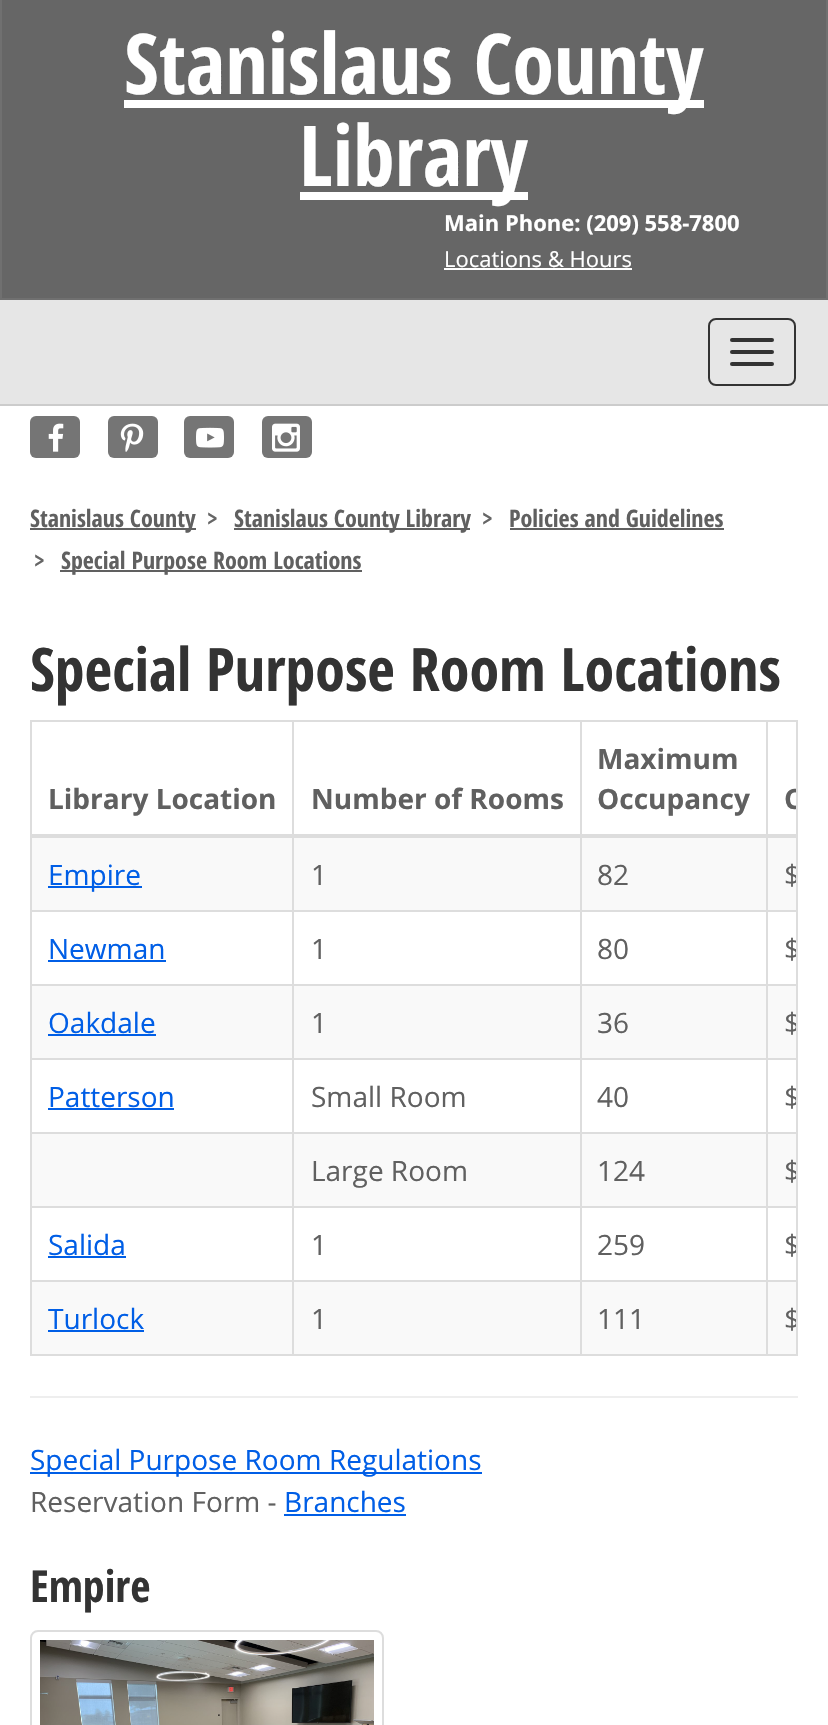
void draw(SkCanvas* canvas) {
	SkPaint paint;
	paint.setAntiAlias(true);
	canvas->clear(0xffffffff);
	paint.setColor(0xff666666);
	canvas->drawRect(SkRect::MakeXYWH(1, -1, 826, 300), paint);
	paint.setStroke(true);
	paint.setStrokeWidth(2);
	paint.setColor(0xff707070);
	canvas->drawRect(SkRect::MakeXYWH(1, -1, 826, 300), paint);
	paint.setStroke(false);
	paint.setColor(0xffffffff);
	canvas->drawRect(SkRect::MakeXYWH(124, 100, 580, 8), paint);
	SkFont f1(fontMgr->matchFamilyStyle("Open Sans Condensed", SkFontStyle::Bold()), 84);
	f1.setSubpixel(true);
	canvas->drawString("Stanislaus County", 124, 94, f1, paint);
	canvas->drawRect(SkRect::MakeXYWH(300, 192, 228, 8), paint);
	canvas->drawString("Library", 299, 186, f1, paint);
	SkFont f2(fontMgr->matchFamilyStyle("Open Sans", SkFontStyle::Bold()), 22);
	f2.setSubpixel(true);
	canvas->drawString("Main Phone: (209) 558-7800", 444, 231, f2, paint);
	SkFont f3(fontMgr->matchFamilyStyle("Open Sans", SkFontStyle::Normal()), 22);
	f3.setSubpixel(true);
	canvas->drawString("Locations & Hours", 444, 267, f3, paint);
	canvas->drawRect(SkRect::MakeXYWH(444, 268, 188, 2), paint);
	paint.setColor(0xffe6e6e6);
	canvas->drawRect(SkRect::MakeXYWH(0, 300, 828, 104), paint);
	paint.setColor(0xffcccccc);
	canvas->drawRect(SkRect::MakeXYWH(0, 404, 828, 2), paint);
	paint.setStroke(true);
	paint.setColor(0xff333333);
	canvas->drawRoundRect(SkRect::MakeXYWH(709, 319, 86, 66), 7, 7, paint);
	paint.setStroke(false);
	canvas->drawRoundRect(SkRect::MakeXYWH(730, 338, 44, 4), 2, 2, paint);
	canvas->drawRoundRect(SkRect::MakeXYWH(730, 350, 44, 4), 2, 2, paint);
	canvas->drawRoundRect(SkRect::MakeXYWH(730, 362, 44, 4), 2, 2, paint);
	paint.setColor(0xff757575);
	canvas->drawRoundRect(SkRect::MakeXYWH(30, 416, 50, 42), 6, 6, paint);
	canvas->drawImageRect(SkImages::DeferredFromEncodedData(SkData::MakeFromFileName("img1.png")), SkRect::MakeXYWH(48, 423, 16, 29), SkSamplingOptions());
	canvas->drawRoundRect(SkRect::MakeXYWH(108, 416, 50, 42), 6, 6, paint);
	canvas->drawImageRect(SkImages::DeferredFromEncodedData(SkData::MakeFromFileName("img2.png")), SkRect::MakeXYWH(120, 423, 24, 29), SkSamplingOptions());
	canvas->drawRoundRect(SkRect::MakeXYWH(184, 416, 50, 42), 6, 6, paint);
	canvas->drawImageRect(SkImages::DeferredFromEncodedData(SkData::MakeFromFileName("img3.png")), SkRect::MakeXYWH(196, 427, 28, 21), SkSamplingOptions());
	canvas->drawRoundRect(SkRect::MakeXYWH(262, 416, 50, 42), 6, 6, paint);
	canvas->drawImageRect(SkImages::DeferredFromEncodedData(SkData::MakeFromFileName("img4.png")), SkRect::MakeXYWH(272, 423, 28, 29), SkSamplingOptions());
	paint.setColor(0xff606060);
	canvas->drawRect(SkRect::MakeXYWH(30, 528, 166, 2), paint);
	SkFont f4(fontMgr->matchFamilyStyle("Open Sans Condensed", SkFontStyle::Bold()), 24);
	f4.setSubpixel(true);
	canvas->drawString("Stanislaus County", 30, 527, f4, paint);
	paint.setColor(0xff666666);
	canvas->drawString(">", 207, 527, f4, paint);
	paint.setColor(0xff606060);
	canvas->drawRect(SkRect::MakeXYWH(234, 528, 236, 2), paint);
	canvas->drawString("Stanislaus County Library", 234, 527, f4, paint);
	paint.setColor(0xff666666);
	canvas->drawString(">", 482, 527, f4, paint);
	paint.setColor(0xff606060);
	canvas->drawString("Policies and Guidelines", 509, 527, f4, paint);
	canvas->drawRect(SkRect::MakeXYWH(510, 528, 214, 2), paint);
	paint.setColor(0xff666666);
	canvas->drawString(">", 34, 569, f4, paint);
	paint.setColor(0xff606060);
	canvas->drawRect(SkRect::MakeXYWH(60, 570, 302, 2), paint);
	canvas->drawString("Special Purpose Room Locations", 61, 569, f4, paint);
	SkFont f5(fontMgr->matchFamilyStyle("Open Sans Condensed", SkFontStyle::Bold()), 60);
	f5.setSubpixel(true);
	paint.setColor(0xff333333);
	canvas->drawString("Special Purpose Room Locations", 30, 691, f5, paint);
	paint.setStroke(true);
	paint.setColor(0xffdddddd);
	canvas->drawRect(SkRect::MakeXYWH(31, 721, 766, 634), paint);
	SkFont f6(fontMgr->matchFamilyStyle("Open Sans", SkFontStyle::Bold()), 28);
	f6.setSubpixel(true);
	paint.setStroke(false);
	paint.setColor(0xff606060);
	canvas->drawString("Library Location", 48, 809, f6, paint);
	canvas->drawString("Number of Rooms", 311, 809, f6, paint);
	canvas->drawString("Maximum", 597, 769, f6, paint);
	canvas->drawString("Occupancy", 597, 809, f6, paint);
	paint.setColor(0xfff9f9f9);
	canvas->drawRect(SkRect::MakeXYWH(32, 838, 764, 72), paint);
	paint.setColor(0xffdddddd);
	canvas->drawRect(SkRect::MakeXYWH(766, 910, 30, 2), paint);
	canvas->drawRect(SkRect::MakeXYWH(766, 984, 30, 2), paint);
	paint.setColor(0xfff9f9f9);
	canvas->drawRect(SkRect::MakeXYWH(32, 986, 764, 72), paint);
	paint.setColor(0xffdddddd);
	canvas->drawRect(SkRect::MakeXYWH(766, 1058, 30, 2), paint);
	canvas->drawRect(SkRect::MakeXYWH(766, 1132, 30, 2), paint);
	paint.setColor(0xfff9f9f9);
	canvas->drawRect(SkRect::MakeXYWH(32, 1134, 764, 72), paint);
	paint.setColor(0xffdddddd);
	canvas->drawRect(SkRect::MakeXYWH(766, 1206, 30, 2), paint);
	canvas->drawRect(SkRect::MakeXYWH(766, 1280, 30, 2), paint);
	paint.setColor(0xfff9f9f9);
	canvas->drawRect(SkRect::MakeXYWH(32, 1282, 764, 72), paint);
	paint.setColor(0xffdddddd);
	canvas->drawRect(SkRect::MakeXYWH(766, 1280, 2, 74), paint);
	canvas->drawRect(SkRect::MakeXYWH(580, 1280, 188, 2), paint);
	canvas->drawRect(SkRect::MakeXYWH(766, 1206, 2, 76), paint);
	canvas->drawRect(SkRect::MakeXYWH(580, 1206, 188, 2), paint);
	canvas->drawRect(SkRect::MakeXYWH(766, 1132, 2, 76), paint);
	canvas->drawRect(SkRect::MakeXYWH(580, 1132, 188, 2), paint);
	canvas->drawRect(SkRect::MakeXYWH(766, 1058, 2, 76), paint);
	canvas->drawRect(SkRect::MakeXYWH(580, 1058, 188, 2), paint);
	canvas->drawRect(SkRect::MakeXYWH(766, 984, 2, 76), paint);
	canvas->drawRect(SkRect::MakeXYWH(580, 984, 188, 2), paint);
	canvas->drawRect(SkRect::MakeXYWH(766, 910, 2, 76), paint);
	canvas->drawRect(SkRect::MakeXYWH(580, 910, 188, 2), paint);
	canvas->drawRect(SkRect::MakeXYWH(580, 1280, 2, 74), paint);
	canvas->drawRect(SkRect::MakeXYWH(292, 1280, 290, 2), paint);
	canvas->drawRect(SkRect::MakeXYWH(580, 1206, 2, 76), paint);
	canvas->drawRect(SkRect::MakeXYWH(292, 1206, 290, 2), paint);
	canvas->drawRect(SkRect::MakeXYWH(580, 1132, 2, 76), paint);
	canvas->drawRect(SkRect::MakeXYWH(292, 1132, 290, 2), paint);
	canvas->drawRect(SkRect::MakeXYWH(580, 1058, 2, 76), paint);
	canvas->drawRect(SkRect::MakeXYWH(292, 1058, 290, 2), paint);
	canvas->drawRect(SkRect::MakeXYWH(580, 984, 2, 76), paint);
	canvas->drawRect(SkRect::MakeXYWH(292, 984, 290, 2), paint);
	canvas->drawRect(SkRect::MakeXYWH(580, 910, 2, 76), paint);
	canvas->drawRect(SkRect::MakeXYWH(292, 910, 290, 2), paint);
	canvas->drawRect(SkRect::MakeXYWH(292, 1280, 2, 74), paint);
	canvas->drawRect(SkRect::MakeXYWH(32, 1280, 262, 2), paint);
	canvas->drawRect(SkRect::MakeXYWH(292, 1206, 2, 76), paint);
	canvas->drawRect(SkRect::MakeXYWH(32, 1206, 262, 2), paint);
	canvas->drawRect(SkRect::MakeXYWH(292, 1132, 2, 76), paint);
	canvas->drawRect(SkRect::MakeXYWH(32, 1132, 262, 2), paint);
	canvas->drawRect(SkRect::MakeXYWH(292, 1058, 2, 76), paint);
	canvas->drawRect(SkRect::MakeXYWH(32, 1058, 262, 2), paint);
	canvas->drawRect(SkRect::MakeXYWH(292, 984, 2, 76), paint);
	canvas->drawRect(SkRect::MakeXYWH(32, 984, 262, 2), paint);
	canvas->drawRect(SkRect::MakeXYWH(292, 910, 2, 76), paint);
	canvas->drawRect(SkRect::MakeXYWH(32, 910, 262, 2), paint);
	canvas->drawRect(SkRect::MakeXYWH(292, 722, 2, 190), paint);
	canvas->drawRect(SkRect::MakeXYWH(580, 722, 2, 190), paint);
	canvas->drawRect(SkRect::MakeXYWH(766, 722, 2, 190), paint);
	canvas->drawRect(SkRect::MakeXYWH(32, 834, 764, 4), paint);
	canvas->save();
	canvas->clipRect(SkRect::MakeXYWH(32, 722, 764, 632));
	paint.setColor(0xff606060);
	canvas->drawString("C", 784, 809, f6, paint);
	canvas->restore();
	paint.setColor(0xff005ee6);
	canvas->drawRect(SkRect::MakeXYWH(48, 886, 94, 2), paint);
	SkFont f7(fontMgr->matchFamilyStyle("Open Sans", SkFontStyle::Normal()), 28);
	f7.setSubpixel(true);
	canvas->drawString("Empire", 48, 885, f7, paint);
	paint.setColor(0xff606060);
	canvas->drawString("1", 311, 885, f7, paint);
	canvas->drawString("82", 597, 885, f7, paint);
	canvas->save();
	canvas->clipRect(SkRect::MakeXYWH(32, 722, 764, 632));
	canvas->drawString("$", 784, 885, f7, paint);
	canvas->restore();
	paint.setColor(0xff005ee6);
	canvas->drawString("Newman", 48, 959, f7, paint);
	canvas->drawRect(SkRect::MakeXYWH(48, 960, 118, 2), paint);
	paint.setColor(0xff606060);
	canvas->drawString("1", 311, 959, f7, paint);
	canvas->drawString("80", 597, 959, f7, paint);
	canvas->save();
	canvas->clipRect(SkRect::MakeXYWH(32, 722, 764, 632));
	canvas->drawString("$", 784, 959, f7, paint);
	canvas->restore();
	paint.setColor(0xff005ee6);
	canvas->drawString("Oakdale", 48, 1033, f7, paint);
	canvas->drawRect(SkRect::MakeXYWH(48, 1034, 108, 2), paint);
	paint.setColor(0xff606060);
	canvas->drawString("1", 311, 1033, f7, paint);
	canvas->drawString("36", 597, 1033, f7, paint);
	canvas->save();
	canvas->clipRect(SkRect::MakeXYWH(32, 722, 764, 632));
	canvas->drawString("$", 784, 1033, f7, paint);
	canvas->restore();
	paint.setColor(0xff005ee6);
	canvas->drawString("Patterson", 48, 1107, f7, paint);
	canvas->drawRect(SkRect::MakeXYWH(48, 1108, 126, 2), paint);
	paint.setColor(0xff606060);
	canvas->drawString("Small Room", 311, 1107, f7, paint);
	canvas->drawString("40", 597, 1107, f7, paint);
	canvas->save();
	canvas->clipRect(SkRect::MakeXYWH(32, 722, 764, 632));
	canvas->drawString("$", 784, 1107, f7, paint);
	canvas->restore();
	canvas->drawString("Large Room", 311, 1181, f7, paint);
	canvas->drawString("124", 597, 1181, f7, paint);
	canvas->save();
	canvas->clipRect(SkRect::MakeXYWH(32, 722, 764, 632));
	canvas->drawString("$", 784, 1181, f7, paint);
	canvas->restore();
	paint.setColor(0xff005ee6);
	canvas->drawString("Salida", 48, 1255, f7, paint);
	canvas->drawRect(SkRect::MakeXYWH(48, 1256, 78, 2), paint);
	paint.setColor(0xff606060);
	canvas->drawString("1", 311, 1255, f7, paint);
	canvas->drawString("259", 597, 1255, f7, paint);
	canvas->save();
	canvas->clipRect(SkRect::MakeXYWH(32, 722, 764, 632));
	canvas->drawString("$", 784, 1255, f7, paint);
	canvas->restore();
	paint.setColor(0xff005ee6);
	canvas->drawString("Turlock", 48, 1329, f7, paint);
	canvas->drawRect(SkRect::MakeXYWH(48, 1330, 96, 2), paint);
	paint.setColor(0xff606060);
	canvas->drawString("1", 311, 1329, f7, paint);
	canvas->drawString("111", 597, 1329, f7, paint);
	canvas->save();
	canvas->clipRect(SkRect::MakeXYWH(32, 722, 764, 632));
	canvas->drawString("$", 784, 1329, f7, paint);
	canvas->restore();
	paint.setColor(0xffeeeeee);
	canvas->drawRect(SkRect::MakeXYWH(30, 1396, 768, 2), paint);
	paint.setColor(0xff005ee6);
	canvas->drawRect(SkRect::MakeXYWH(30, 1472, 452, 2), paint);
	canvas->drawString("Special Purpose Room Regulations", 30, 1470, f7, paint);
	paint.setColor(0xff606060);
	canvas->drawString("Reservation Form -", 30, 1512, f7, paint);
	paint.setColor(0xff005ee6);
	canvas->drawString("Branches", 284, 1512, f7, paint);
	canvas->drawRect(SkRect::MakeXYWH(284, 1514, 122, 2), paint);
	SkFont f8(fontMgr->matchFamilyStyle("Open Sans Condensed", SkFontStyle::Bold()), 44);
	f8.setSubpixel(true);
	paint.setColor(0xff333333);
	canvas->drawString("Empire", 30, 1602, f8, paint);
	paint.setStroke(true);
	paint.setColor(0xffdddddd);
	canvas->drawRoundRect(SkRect::MakeXYWH(31, 1631, 352, 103), 7, 7, paint);
	canvas->drawImageRect(SkImages::DeferredFromEncodedData(SkData::MakeFromFileName("img5.png")), SkRect::MakeXYWH(40, 1640, 334, 85), SkSamplingOptions());
}
